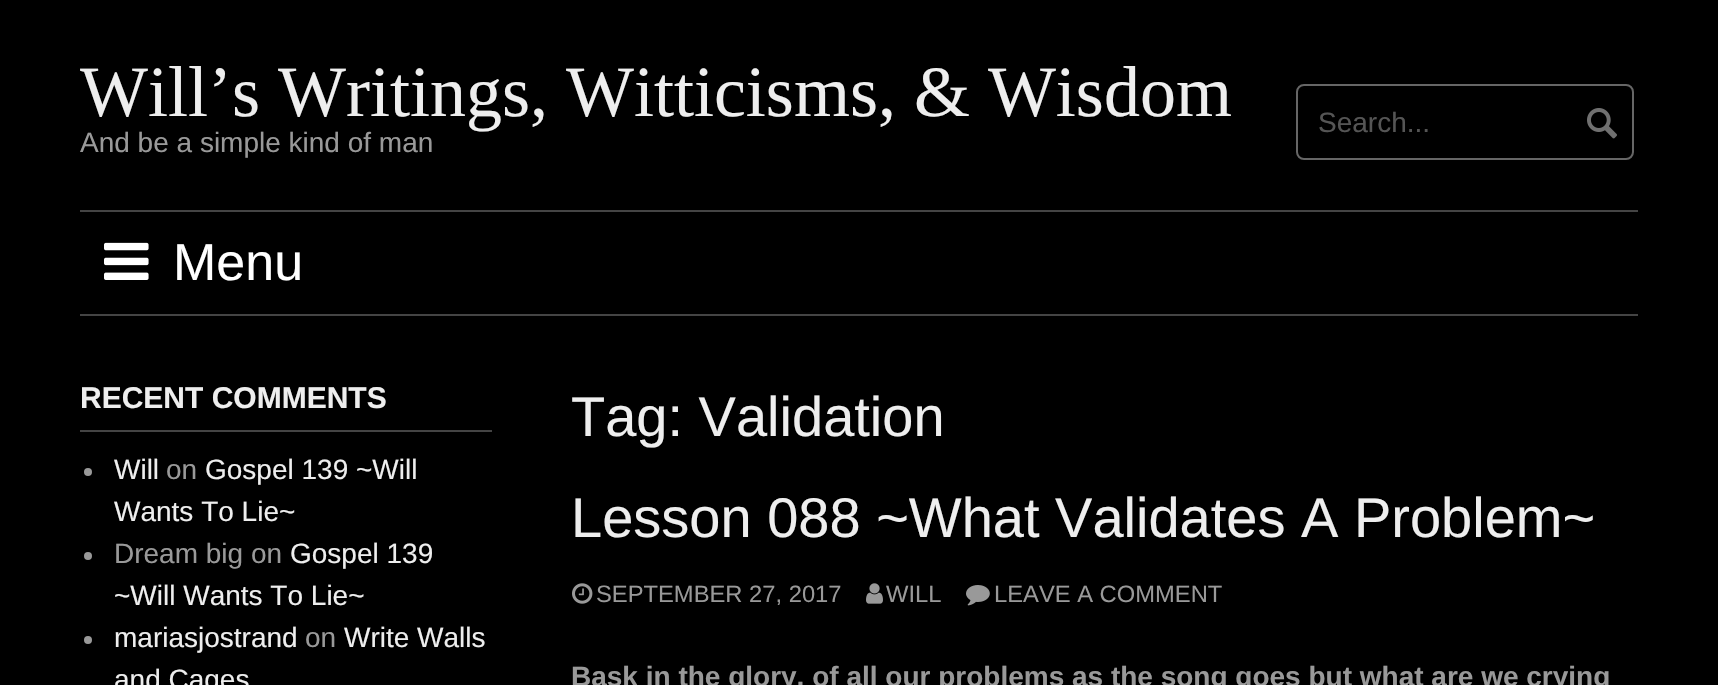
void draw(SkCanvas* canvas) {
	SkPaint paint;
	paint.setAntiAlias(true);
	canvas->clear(0xff000000);
	SkFont f1(fontMgr->matchFamilyStyle("Liberation Serif", SkFontStyle::Normal()), 72);
	f1.setSubpixel(true);
	paint.setColor(0xffeeeeee);
	canvas->drawString("Will’s Writings, Witticisms, & Wisdom", 80, 116, f1, paint);
	SkFont f2(fontMgr->matchFamilyStyle("Liberation Sans", SkFontStyle::Normal()), 28);
	f2.setSubpixel(true);
	paint.setColor(0xff999999);
	canvas->drawString("And be a simple kind of man", 80, 152, f2, paint);
	paint.setStroke(true);
	paint.setStrokeWidth(2);
	paint.setColor(0xff666666);
	canvas->drawRoundRect(SkRect::MakeXYWH(1297, 85, 336, 74), 7, 7, paint);
	paint.setStroke(false);
	paint.setColor(0xff555555);
	canvas->drawString("Search...", 1318, 132, f2, paint);
	canvas->drawImageRect(SkImages::DeferredFromEncodedData(SkData::MakeFromFileName("img1.png")), SkRect::MakeXYWH(1587, 108, 30, 31), SkSamplingOptions());
	paint.setColor(0xff444444);
	canvas->drawRect(SkRect::MakeXYWH(80, 210, 1558, 2), paint);
	canvas->drawRect(SkRect::MakeXYWH(80, 314, 1558, 2), paint);
	canvas->drawImageRect(SkImages::DeferredFromEncodedData(SkData::MakeFromFileName("img2.png")), SkRect::MakeXYWH(104, 242, 45, 38), SkSamplingOptions());
	SkFont f3(fontMgr->matchFamilyStyle("Liberation Sans", SkFontStyle::Normal()), 52);
	f3.setSubpixel(true);
	paint.setColor(0xffffffff);
	canvas->drawString("Menu", 173, 280, f3, paint);
	paint.setColor(0xff444444);
	canvas->drawRect(SkRect::MakeXYWH(80, 430, 412, 2), paint);
	SkFont f4(fontMgr->matchFamilyStyle("Liberation Sans", SkFontStyle::Bold()), 30);
	f4.setSubpixel(true);
	paint.setColor(0xffeeeeee);
	canvas->drawString("RECENT COMMENTS", 80, 408, f4, paint);
	paint.setColor(0xff999999);
	canvas->drawCircle(88, 472, 4, paint);
	paint.setColor(0xffeeeeee);
	canvas->drawString("Will", 114, 479, f2, paint);
	paint.setColor(0xff999999);
	canvas->drawString("on", 166, 479, f2, paint);
	paint.setColor(0xffeeeeee);
	canvas->drawString("Gospel 139 ~Will", 205, 479, f2, paint);
	canvas->drawString("Wants To Lie~", 114, 521, f2, paint);
	paint.setColor(0xff999999);
	canvas->drawCircle(88, 556, 4, paint);
	canvas->drawString("Dream big on", 114, 563, f2, paint);
	paint.setColor(0xffeeeeee);
	canvas->drawString("Gospel 139", 290, 563, f2, paint);
	canvas->drawString("~Will Wants To Lie~", 114, 605, f2, paint);
	paint.setColor(0xff999999);
	canvas->drawCircle(88, 640, 4, paint);
	paint.setColor(0xffeeeeee);
	canvas->drawString("mariasjostrand", 114, 647, f2, paint);
	paint.setColor(0xff999999);
	canvas->drawString("on", 305, 647, f2, paint);
	paint.setColor(0xffeeeeee);
	canvas->drawString("Write Walls", 344, 647, f2, paint);
	canvas->drawString("and Cages", 114, 689, f2, paint);
	SkFont f5(fontMgr->matchFamilyStyle("Liberation Sans", SkFontStyle::Normal()), 56);
	f5.setSubpixel(true);
	canvas->drawString("Tag: Validation", 571, 436, f5, paint);
	canvas->drawString("Lesson 088 ~What Validates A Problem~", 571, 537, f5, paint);
	canvas->drawImageRect(SkImages::DeferredFromEncodedData(SkData::MakeFromFileName("img3.png")), SkRect::MakeXYWH(572, 583, 21, 21), SkSamplingOptions());
	SkFont f6(fontMgr->matchFamilyStyle("Liberation Sans", SkFontStyle::Normal()), 23.75);
	f6.setSubpixel(true);
	paint.setColor(0xff999999);
	canvas->drawString("SEPTEMBER 27, 2017", 596, 602, f6, paint);
	canvas->drawImageRect(SkImages::DeferredFromEncodedData(SkData::MakeFromFileName("img4.png")), SkRect::MakeXYWH(866, 583, 17, 21), SkSamplingOptions());
	canvas->drawString("WILL", 886, 602, f6, paint);
	canvas->drawImageRect(SkImages::DeferredFromEncodedData(SkData::MakeFromFileName("img5.png")), SkRect::MakeXYWH(966, 585, 24, 21), SkSamplingOptions());
	canvas->drawString("LEAVE A COMMENT", 994, 602, f6, paint);
	SkFont f7(fontMgr->matchFamilyStyle("Liberation Sans", SkFontStyle::Bold()), 28);
	f7.setSubpixel(true);
	canvas->drawString("Bask in the glory, of all our problems as the song goes but what are we crying", 571, 686, f7, paint);
}
